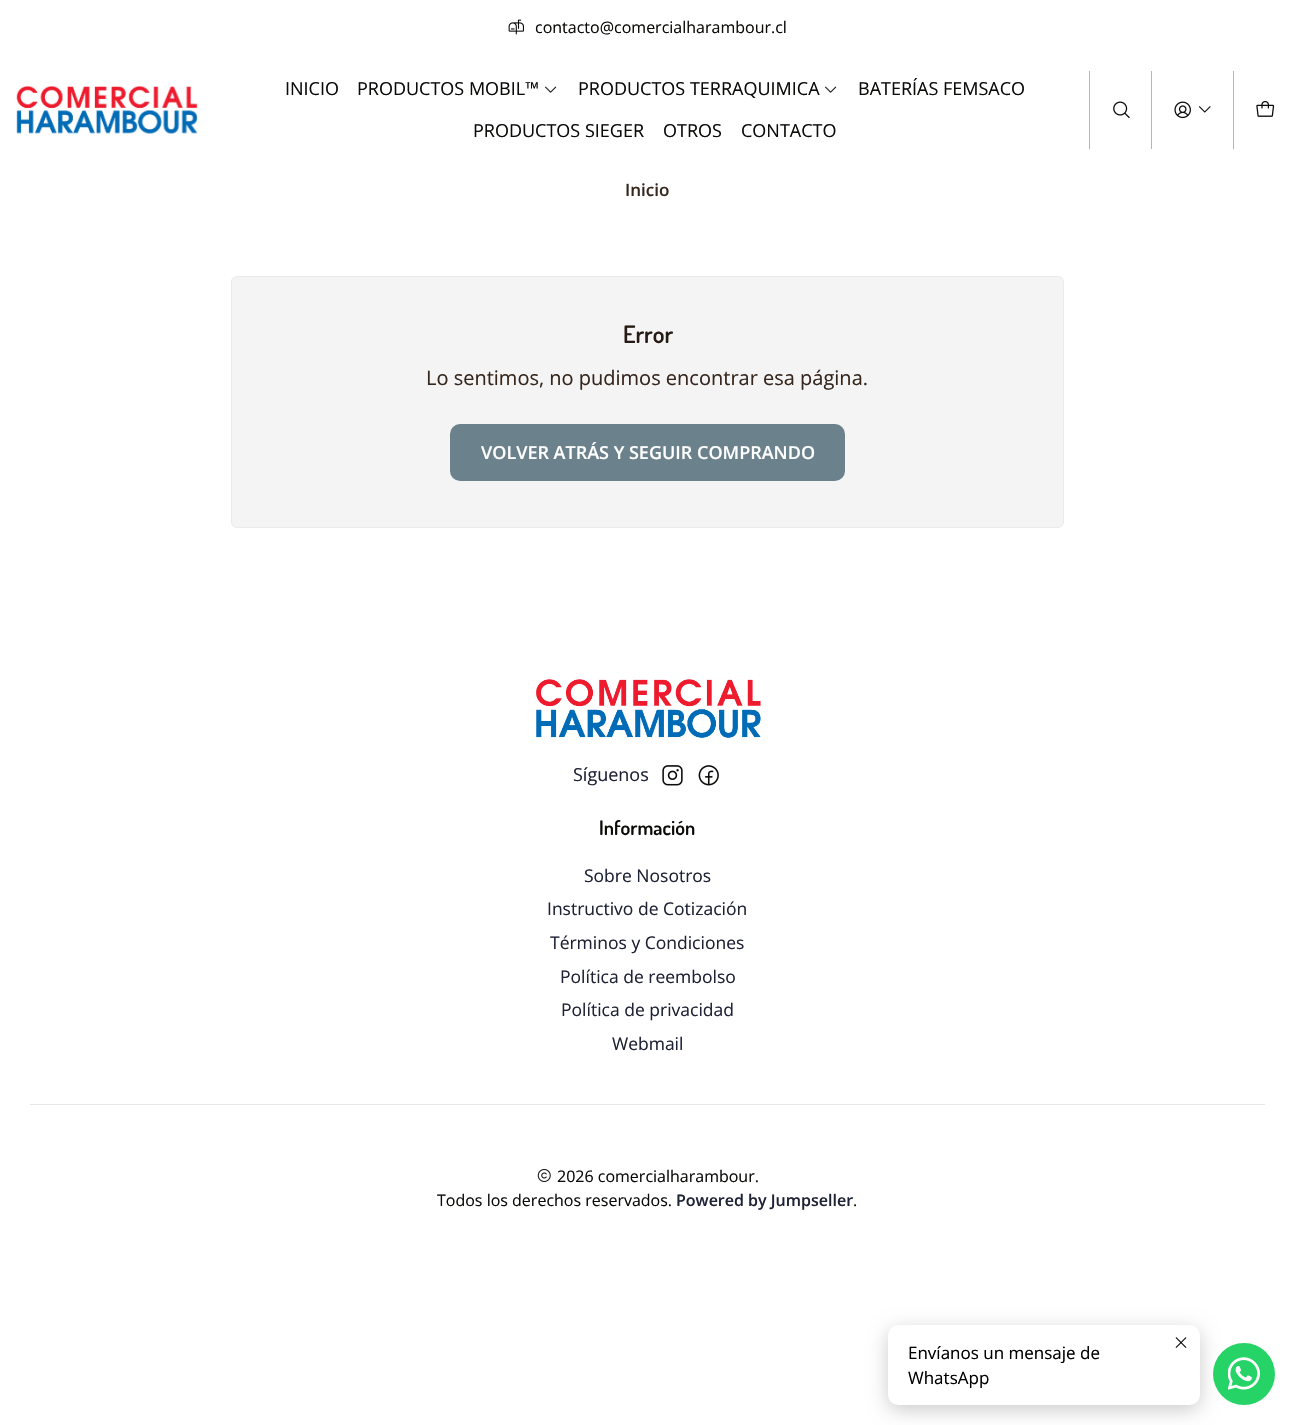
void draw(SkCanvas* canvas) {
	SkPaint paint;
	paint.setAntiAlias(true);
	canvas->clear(0xffffffff);
	canvas->drawImageRect(SkImages::DeferredFromEncodedData(SkData::MakeFromFileName("img1.png")), SkRect::MakeXYWH(508, 19, 16, 16), SkSamplingOptions());
	SkFont f1(fontMgr->matchFamilyStyle("Open Sans", SkFontStyle::Normal()), 16);
	f1.setSubpixel(true);
	paint.setColor(0xff0c0b09);
	canvas->drawString("contacto@comercialharambour.cl", 535, 33, f1, paint);
	canvas->drawImageRect(SkImages::DeferredFromEncodedData(SkData::MakeFromFileName("img2.png")), SkRect::MakeXYWH(16, 85, 182, 49), SkSamplingOptions());
	SkFont f2(fontMgr->matchFamilyStyle("Open Sans", SkFontStyle::Normal()), 18);
	f2.setSubpixel(true);
	canvas->drawString("INICIO", 285, 95, f2, paint);
	canvas->drawString("PRODUCTOS MOBIL™", 357, 95, f2, paint);
	canvas->drawImageRect(SkImages::DeferredFromEncodedData(SkData::MakeFromFileName("img3.png")), SkRect::MakeXYWH(545, 86, 12, 7), SkSamplingOptions());
	canvas->drawString("PRODUCTOS TERRAQUIMICA", 578, 95, f2, paint);
	canvas->drawImageRect(SkImages::DeferredFromEncodedData(SkData::MakeFromFileName("img3.png")), SkRect::MakeXYWH(825, 86, 12, 7), SkSamplingOptions());
	canvas->drawString("BATERÍAS FEMSACO", 858, 95, f2, paint);
	canvas->drawString("PRODUCTOS SIEGER", 473, 137, f2, paint);
	canvas->drawString("OTROS", 663, 137, f2, paint);
	canvas->drawString("CONTACTO", 741, 137, f2, paint);
	paint.setColor(0xffb6b6b5);
	canvas->drawRect(SkRect::MakeXYWH(1089, 71, 1, 78), paint);
	canvas->drawImageRect(SkImages::DeferredFromEncodedData(SkData::MakeFromFileName("img4.png")), SkRect::MakeXYWH(1113, 101, 17, 18), SkSamplingOptions());
	canvas->drawRect(SkRect::MakeXYWH(1151, 71, 1, 78), paint);
	canvas->drawImageRect(SkImages::DeferredFromEncodedData(SkData::MakeFromFileName("img5.png")), SkRect::MakeXYWH(1174, 101, 17, 18), SkSamplingOptions());
	canvas->drawImageRect(SkImages::DeferredFromEncodedData(SkData::MakeFromFileName("img6.png")), SkRect::MakeXYWH(1198, 106, 13, 7), SkSamplingOptions());
	canvas->drawRect(SkRect::MakeXYWH(1233, 71, 1, 78), paint);
	canvas->drawImageRect(SkImages::DeferredFromEncodedData(SkData::MakeFromFileName("img7.png")), SkRect::MakeXYWH(1256, 100, 19, 17), SkSamplingOptions());
	SkFont f3(fontMgr->matchFamilyStyle("Open Sans", SkFontStyle(600, SkFontStyle::kNormal_Width, SkFontStyle::kUpright_Slant)), 17);
	f3.setSubpixel(true);
	paint.setColor(0xff35271d);
	canvas->drawString("Inicio", 625, 196, f3, paint);
	paint.setColor(0xfff5f4f4);
	canvas->drawRoundRect(SkRect::MakeXYWH(231.5, 276.5, 832, 251), 5.5, 5.5, paint);
	paint.setStroke(true);
	paint.setStrokeWidth(1);
	paint.setColor(0xffebe9e9);
	canvas->drawRoundRect(SkRect::MakeXYWH(231.5, 276.5, 832, 251), 5.5, 5.5, paint);
	SkFont f4(fontMgr->matchFamilyStyle("Dosis", SkFontStyle(600, SkFontStyle::kNormal_Width, SkFontStyle::kUpright_Slant)), 24);
	f4.setSubpixel(true);
	paint.setStroke(false);
	paint.setColor(0xff261c15);
	canvas->drawString("Error", 623, 343, f4, paint);
	SkFont f5(fontMgr->matchFamilyStyle("Open Sans", SkFontStyle::Normal()), 20);
	f5.setSubpixel(true);
	paint.setColor(0xff35271d);
	canvas->drawString("Lo sentimos, no pudimos encontrar esa página.", 426, 385, f5, paint);
	paint.setColor(0xff6b818c);
	canvas->drawRoundRect(SkRect::MakeXYWH(450, 424, 395, 57), 10, 10, paint);
	SkFont f6(fontMgr->matchFamilyStyle("Open Sans", SkFontStyle(600, SkFontStyle::kNormal_Width, SkFontStyle::kUpright_Slant)), 18);
	f6.setSubpixel(true);
	paint.setColor(0xffffffff);
	canvas->drawString("VOLVER ATRÁS Y SEGUIR COMPRANDO", 481, 459, f6, paint);
	canvas->drawImageRect(SkImages::DeferredFromEncodedData(SkData::MakeFromFileName("img8.png")), SkRect::MakeXYWH(536, 679, 225, 59), SkSamplingOptions());
	paint.setColor(0xff1d2235);
	canvas->drawString("Síguenos", 573, 781, f2, paint);
	canvas->drawImageRect(SkImages::DeferredFromEncodedData(SkData::MakeFromFileName("img9.png")), SkRect::MakeXYWH(662, 765, 21, 21), SkSamplingOptions());
	canvas->drawImageRect(SkImages::DeferredFromEncodedData(SkData::MakeFromFileName("img10.png")), SkRect::MakeXYWH(698, 765, 21, 21), SkSamplingOptions());
	SkFont f7(fontMgr->matchFamilyStyle("Dosis", SkFontStyle(600, SkFontStyle::kNormal_Width, SkFontStyle::kUpright_Slant)), 20);
	f7.setSubpixel(true);
	paint.setColor(0xff0c0b09);
	canvas->drawString("Información", 599, 835, f7, paint);
	SkFont f8(fontMgr->matchFamilyStyle("Open Sans", SkFontStyle::Normal()), 17.5);
	f8.setSubpixel(true);
	paint.setColor(0xff1d2235);
	canvas->drawString("Sobre Nosotros", 584, 882, f8, paint);
	canvas->drawString("Instructivo de Cotización", 547, 915, f8, paint);
	canvas->drawString("Términos y Condiciones", 550, 949, f8, paint);
	canvas->drawString("Política de reembolso", 560, 983, f8, paint);
	canvas->drawString("Política de privacidad", 561, 1016, f8, paint);
	canvas->drawString("Webmail", 612, 1050, f8, paint);
	paint.setColor(0xffe7e7e6);
	canvas->drawRect(SkRect::MakeXYWH(30, 1104, 1235, 1), paint);
	canvas->drawImageRect(SkImages::DeferredFromEncodedData(SkData::MakeFromFileName("img11.png")), SkRect::MakeXYWH(537, 1169, 14, 13), SkSamplingOptions());
	paint.setColor(0xff0c0b09);
	canvas->drawString("2026 comercialharambour.", 557, 1182, f1, paint);
	canvas->drawString("Todos los derechos reservados.", 437, 1206, f1, paint);
	SkFont f9(fontMgr->matchFamilyStyle("Open Sans", SkFontStyle(600, SkFontStyle::kNormal_Width, SkFontStyle::kUpright_Slant)), 16);
	f9.setSubpixel(true);
	paint.setColor(0xff1d2235);
	canvas->drawString("Powered by Jumpseller", 676, 1206, f9, paint);
	paint.setColor(0xff0c0b09);
	canvas->drawString(".", 853, 1206, f1, paint);
	paint.setColor(0x33000000);
	paint.setMaskFilter(SkMaskFilter::MakeBlur(kNormal_SkBlurStyle, 9.5));
	canvas->drawRoundRect(SkRect::MakeXYWH(888, 1330, 312, 80), 10, 10, paint);
	paint.setMaskFilter(nullptr);
	paint.setColor(0xffffffff);
	canvas->drawRoundRect(SkRect::MakeXYWH(888, 1325, 312, 80), 10, 10, paint);
	canvas->drawImageRect(SkImages::DeferredFromEncodedData(SkData::MakeFromFileName("img12.png")), SkRect::MakeXYWH(1175, 1337, 12, 11), SkSamplingOptions());
	SkFont f10(fontMgr->matchFamilyStyle("Open Sans", SkFontStyle::Normal()), 17);
	f10.setSubpixel(true);
	paint.setColor(0xff000000);
	canvas->drawString("Envíanos un mensaje de", 908, 1359, f10, paint);
	canvas->drawString("WhatsApp", 908, 1384, f10, paint);
	paint.setColor(0xff25d366);
	canvas->drawCircle(1244, 1374, 31, paint);
	canvas->drawImageRect(SkImages::DeferredFromEncodedData(SkData::MakeFromFileName("img13.png")), SkRect::MakeXYWH(1228, 1357, 32, 33), SkSamplingOptions());
}
